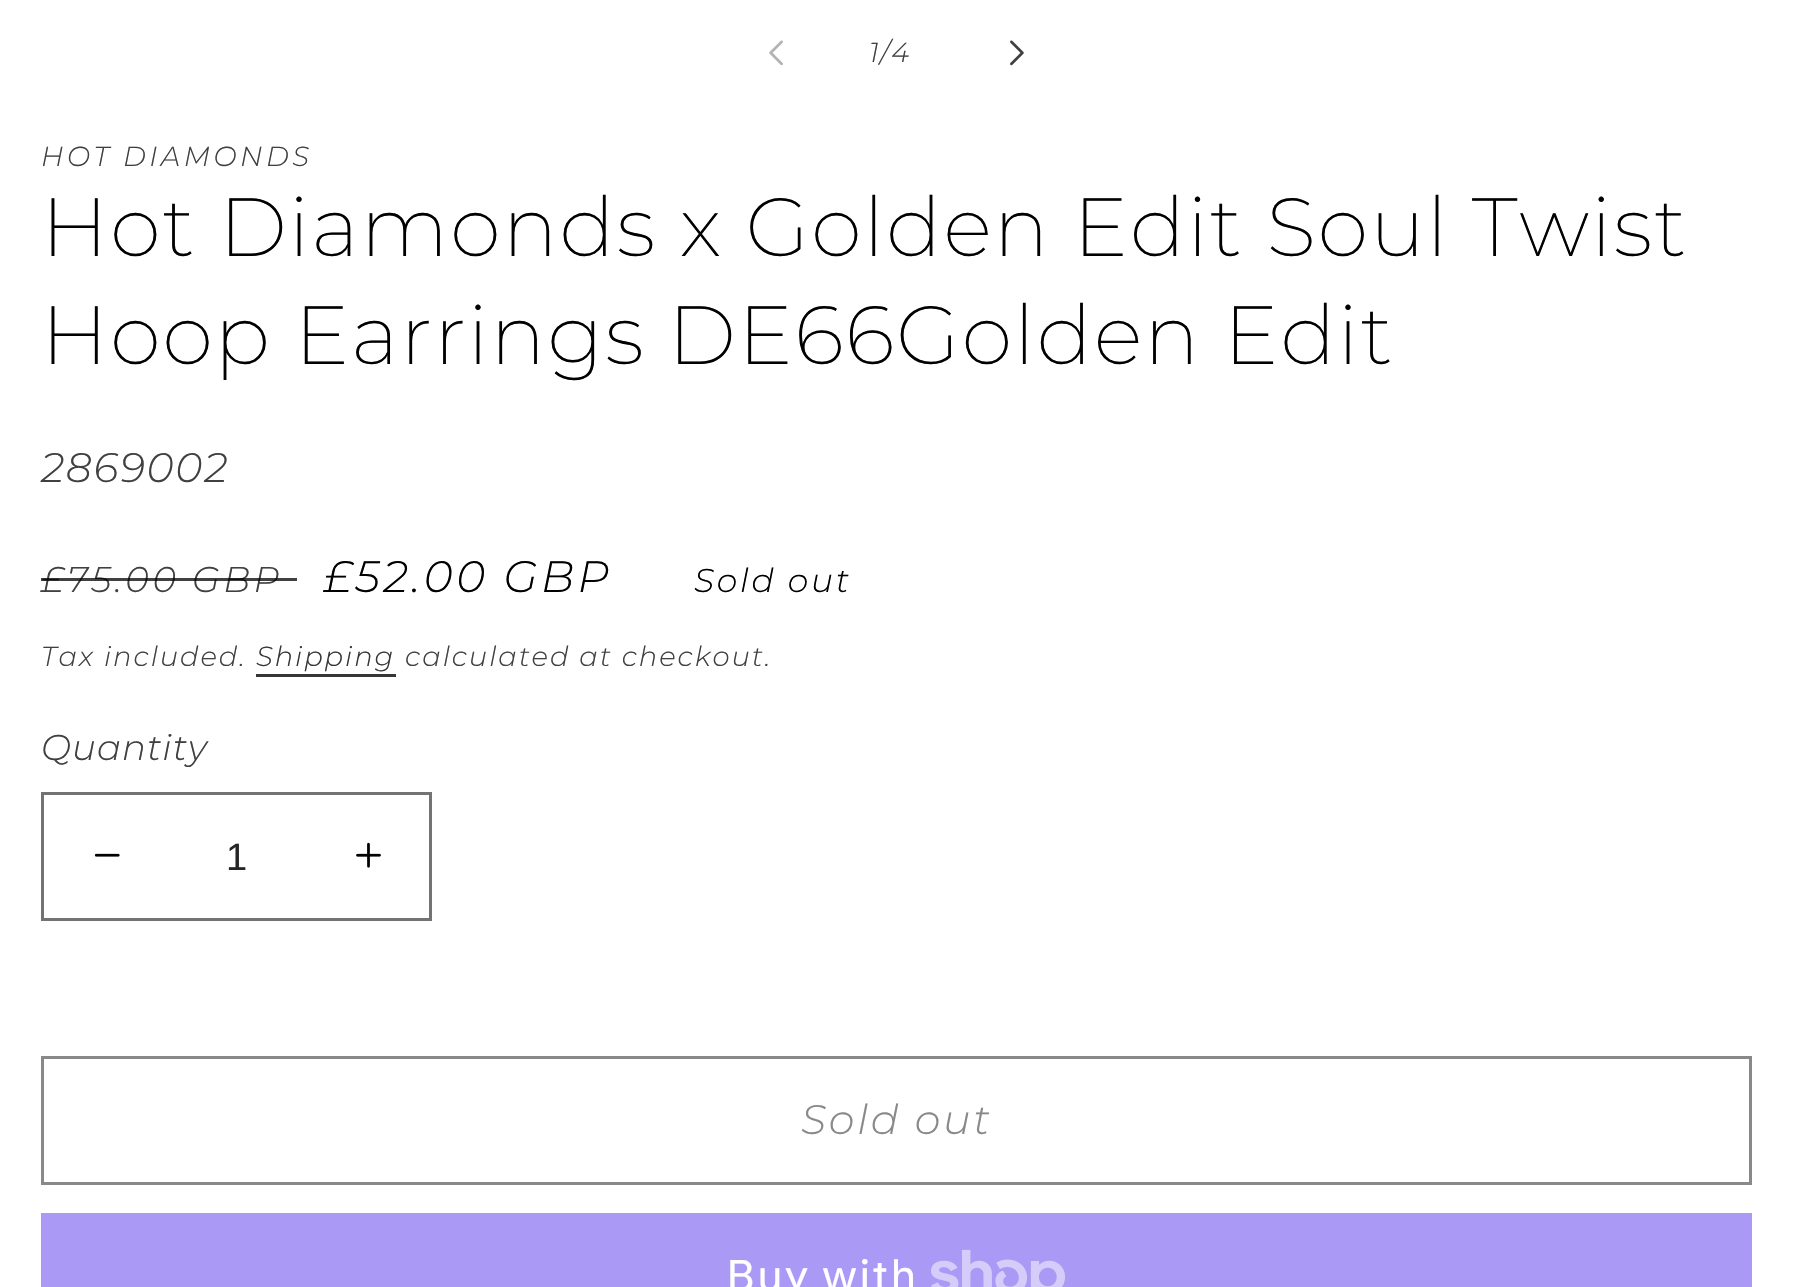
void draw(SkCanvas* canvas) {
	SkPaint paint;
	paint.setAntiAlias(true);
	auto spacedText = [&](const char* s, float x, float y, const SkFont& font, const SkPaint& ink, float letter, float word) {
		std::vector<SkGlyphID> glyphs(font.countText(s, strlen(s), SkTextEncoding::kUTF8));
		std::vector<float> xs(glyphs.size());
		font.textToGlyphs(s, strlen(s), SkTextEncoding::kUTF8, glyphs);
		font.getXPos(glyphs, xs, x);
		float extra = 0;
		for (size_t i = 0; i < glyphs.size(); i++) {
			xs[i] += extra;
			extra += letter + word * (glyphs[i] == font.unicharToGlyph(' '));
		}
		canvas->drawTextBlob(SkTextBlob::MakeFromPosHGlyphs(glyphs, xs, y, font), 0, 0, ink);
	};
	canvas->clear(0xffffffff);
	canvas->drawImageRect(SkImages::DeferredFromEncodedData(SkData::MakeFromFileName("img1.png")), SkRect::MakeXYWH(769, 40, 14, 26), SkSamplingOptions());
	SkFont f1(fontMgr->matchFamilyStyle("Montserrat", SkFontStyle(300, SkFontStyle::kNormal_Width, SkFontStyle::kItalic_Slant)), 27.5);
	f1.setSubpixel(true);
	paint.setColor(0xff404040);
	spacedText("1/4", 869, 62, f1, paint, 1.9, 0);
	canvas->drawImageRect(SkImages::DeferredFromEncodedData(SkData::MakeFromFileName("img2.png")), SkRect::MakeXYWH(1010, 40, 14, 26), SkSamplingOptions());
	spacedText("HOT DIAMONDS", 41, 166, f1, paint, 3.5, 0);
	SkFont f2(fontMgr->matchFamilyStyle("Montserrat", SkFontStyle(200, SkFontStyle::kNormal_Width, SkFontStyle::kUpright_Slant)), 82.5);
	f2.setSubpixel(true);
	paint.setColor(0xff000000);
	spacedText("Hot Diamonds x Golden Edit Soul Twist", 41, 256, f2, paint, 1.65, 0);
	spacedText("Hoop Earrings DE66Golden Edit", 41, 364, f2, paint, 1.65, 0);
	SkFont f3(fontMgr->matchFamilyStyle("Montserrat", SkFontStyle(300, SkFontStyle::kNormal_Width, SkFontStyle::kItalic_Slant)), 41.25);
	f3.setSubpixel(true);
	paint.setColor(0xff404040);
	spacedText("2869002", 41, 482, f3, paint, 1.65, 0);
	SkFont f4(fontMgr->matchFamilyStyle("Montserrat", SkFontStyle(300, SkFontStyle::kNormal_Width, SkFontStyle::kItalic_Slant)), 35.75);
	f4.setSubpixel(true);
	spacedText("£75.00 GBP", 41, 592, f4, paint, 3.5, 0);
	paint.setColor(0xbf000000);
	canvas->drawRect(SkRect::MakeXYWH(41, 578, 256, 3), paint);
	SkFont f5(fontMgr->matchFamilyStyle("Montserrat", SkFontStyle(300, SkFontStyle::kNormal_Width, SkFontStyle::kItalic_Slant)), 44);
	f5.setSubpixel(true);
	paint.setColor(0xff000000);
	spacedText("£52.00 GBP", 324, 592, f5, paint, 3.5, 0);
	SkFont f6(fontMgr->matchFamilyStyle("Montserrat", SkFontStyle(300, SkFontStyle::kNormal_Width, SkFontStyle::kItalic_Slant)), 33);
	f6.setSubpixel(true);
	spacedText("Sold out", 694, 592, f6, paint, 2.75, 0);
	paint.setColor(0xff404040);
	spacedText("Tax included.", 41, 666, f1, paint, 1.9, 0);
	paint.setColor(0xff363636);
	spacedText("Shipping", 256, 666, f1, paint, 1.9, 0);
	canvas->drawRect(SkRect::MakeXYWH(256, 674, 140, 3), paint);
	paint.setColor(0xff404040);
	spacedText("calculated at checkout.", 405, 666, f1, paint, 1.9, 0);
	spacedText("Quantity", 41, 760, f4, paint, 1, 0);
	canvas->drawImageRect(SkImages::DeferredFromEncodedData(SkData::MakeFromFileName("img3.png")), SkRect::MakeXYWH(94, 853, 26, 4), SkSamplingOptions());
	canvas->drawImageRect(SkImages::DeferredFromEncodedData(SkData::MakeFromFileName("img4.png")), SkRect::MakeXYWH(356, 842, 25, 26), SkSamplingOptions());
	paint.setStroke(true);
	paint.setStrokeWidth(3);
	paint.setColor(0xff737373);
	canvas->drawRect(SkRect::MakeXYWH(42.5, 793.5, 388, 126), paint);
	SkFont f7(fontMgr->matchFamilyStyle("Liberation Sans", SkFontStyle::Normal()), 38);
	f7.setSubpixel(true);
	paint.setStroke(false);
	paint.setColor(0xff262626);
	canvas->drawString("1", 226, 870, f7, paint);
	paint.setStroke(true);
	paint.setColor(0xff898989);
	canvas->drawRect(SkRect::MakeXYWH(42.5, 1057.5, 1708, 126), paint);
	paint.setStroke(false);
	spacedText("Sold out", 801, 1134, f3, paint, 2.75, 0);
	paint.setColor(0xffaa99f5);
	canvas->drawRect(SkRect::MakeXYWH(41, 1213, 1711, 74), paint);
	SkFont f8(fontMgr->matchFamilyStyle("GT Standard", SkFontStyle::Normal()), 44);
	f8.setSubpixel(true);
	paint.setColor(0xffffffff);
	spacedText("Buy with", 726, 1291, f8, paint, 1.65, 0);
	canvas->drawImageRect(SkImages::DeferredFromEncodedData(SkData::MakeFromFileName("img5.png")), SkRect::MakeXYWH(931, 1249, 134, 38), SkSamplingOptions());
}
